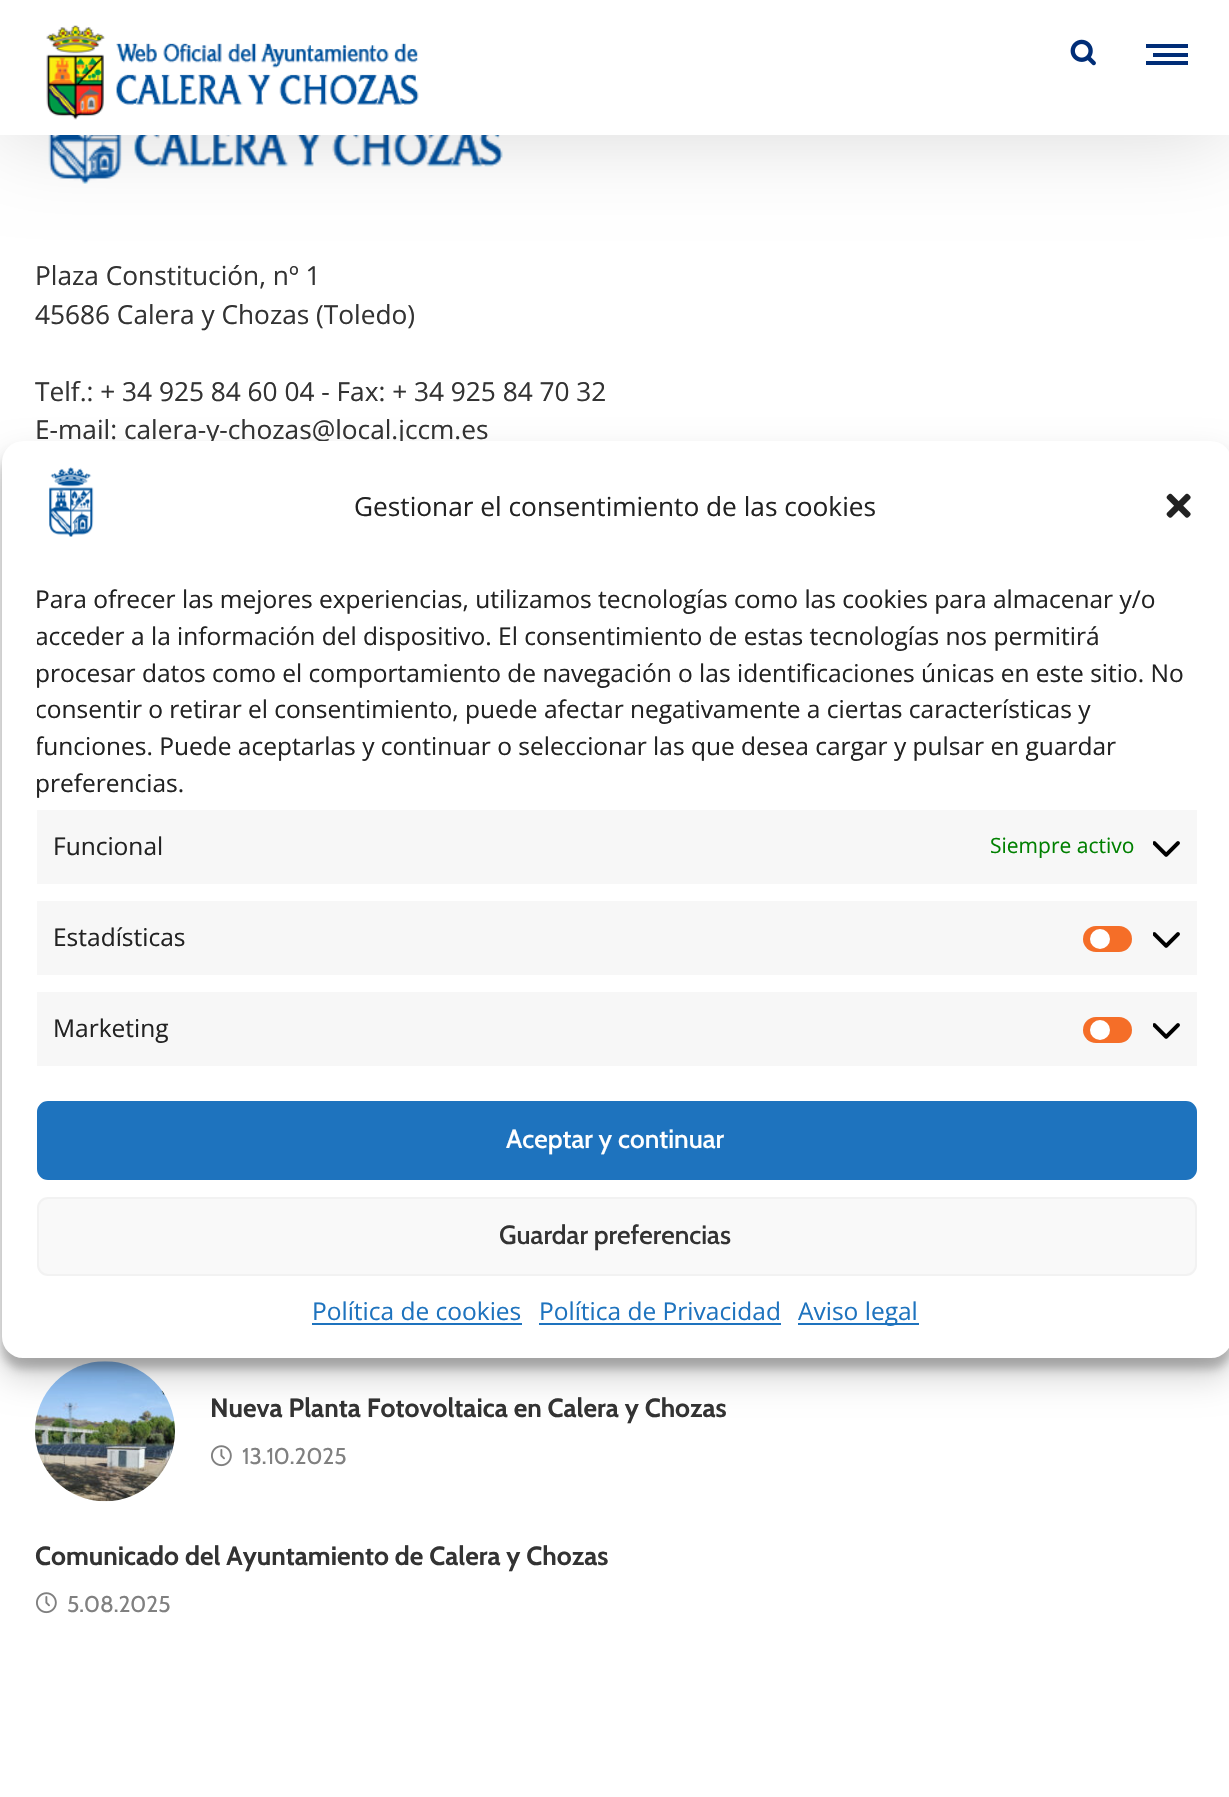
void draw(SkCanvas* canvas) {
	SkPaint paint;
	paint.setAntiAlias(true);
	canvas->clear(0xffffffff);
	canvas->drawImageRect(SkImages::DeferredFromEncodedData(SkData::MakeFromFileName("img3.png")), SkRect::MakeXYWH(48, 135, 455, 49), SkSamplingOptions());
	paint.setColor(0x26000000);
	paint.setMaskFilter(SkMaskFilter::MakeBlur(kNormal_SkBlurStyle, 44));
	canvas->drawRect(SkRect::MakeXYWH(0, 0, 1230, 135), paint);
	paint.setMaskFilter(nullptr);
	paint.setColor(0xffffffff);
	canvas->drawRect(SkRect::MakeXYWH(0, 0, 1229, 135), paint);
	canvas->drawImageRect(SkImages::DeferredFromEncodedData(SkData::MakeFromFileName("img1.png")), SkRect::MakeXYWH(46, 25, 373, 95), SkSamplingOptions());
	canvas->drawImageRect(SkImages::DeferredFromEncodedData(SkData::MakeFromFileName("img2.png")), SkRect::MakeXYWH(1070, 39, 26, 27), SkSamplingOptions());
	paint.setColor(0xff002d77);
	canvas->drawRect(SkRect::MakeXYWH(1146, 44, 42, 4), paint);
	canvas->drawRect(SkRect::MakeXYWH(1153, 53, 35, 4), paint);
	canvas->drawRect(SkRect::MakeXYWH(1146, 61, 42, 4), paint);
	SkFont f1(fontMgr->matchFamilyStyle("Open Sans", SkFontStyle::Normal()), 26.25);
	f1.setSubpixel(true);
	paint.setColor(0xff333333);
	canvas->drawString("Plaza Constitución, nº 1", 35, 285, f1, paint);
	canvas->drawString("45686 Calera y Chozas (Toledo)", 35, 324, f1, paint);
	canvas->drawString("Telf.: + 34 925 84 60 04 - Fax: + 34 925 84 70 32", 35, 401, f1, paint);
	canvas->drawString("E-mail: calera-y-chozas@local.jccm.es", 35, 439, f1, paint);
	canvas->drawImageRect(SkImages::DeferredFromEncodedData(SkData::MakeFromFileName("img4.png")), SkRect::MakeXYWH(35, 1361, 140, 141), SkSamplingOptions());
	SkFont f2(fontMgr->matchFamilyStyle("Cabin", SkFontStyle::Bold()), 26.25);
	f2.setSubpixel(true);
	canvas->drawString("Nueva Planta Fotovoltaica en Calera y Chozas", 210, 1417, f2, paint);
	canvas->drawImageRect(SkImages::DeferredFromEncodedData(SkData::MakeFromFileName("img5.png")), SkRect::MakeXYWH(211, 1445, 21, 22), SkSamplingOptions());
	SkFont f3(fontMgr->matchFamilyStyle("Cabin", SkFontStyle::Normal()), 22.75);
	f3.setSubpixel(true);
	paint.setColor(0xff808080);
	canvas->drawString("13.10.2025", 242, 1464, f3, paint);
	paint.setColor(0xff333333);
	canvas->drawString("Comunicado del Ayuntamiento de Calera y Chozas", 35, 1565, f2, paint);
	canvas->drawImageRect(SkImages::DeferredFromEncodedData(SkData::MakeFromFileName("img5.png")), SkRect::MakeXYWH(36, 1592, 21, 22), SkSamplingOptions());
	paint.setColor(0xff808080);
	canvas->drawString("5.08.2025", 67, 1612, f3, paint);
	paint.setColor(0x3b000000);
	paint.setMaskFilter(SkMaskFilter::MakeBlur(kNormal_SkBlurStyle, 5));
	canvas->drawRoundRect(SkRect::MakeXYWH(2, 452, 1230, 917), 21, 21, paint);
	paint.setMaskFilter(nullptr);
	paint.setColor(0x30000000);
	paint.setMaskFilter(SkMaskFilter::MakeBlur(kNormal_SkBlurStyle, 17.5));
	canvas->drawRoundRect(SkRect::MakeXYWH(2, 459, 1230, 917), 21, 21, paint);
	paint.setMaskFilter(nullptr);
	paint.setColor(0xffffffff);
	canvas->drawRoundRect(SkRect::MakeXYWH(2, 441, 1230, 917), 21, 21, paint);
	canvas->drawImageRect(SkImages::DeferredFromEncodedData(SkData::MakeFromFileName("img6.png")), SkRect::MakeXYWH(49, 467, 45, 70), SkSamplingOptions());
	paint.setColor(0xff222222);
	canvas->drawString("Gestionar el consentimiento de las cookies", 354, 516, f1, paint);
	canvas->drawImageRect(SkImages::DeferredFromEncodedData(SkData::MakeFromFileName("img7.png")), SkRect::MakeXYWH(1166, 493, 25, 25), SkSamplingOptions());
	SkFont f4(fontMgr->matchFamilyStyle("Open Sans", SkFontStyle::Normal()), 24.5);
	f4.setSubpixel(true);
	canvas->drawString("Para ofrecer las mejores experiencias, utilizamos tecnologías como las cookies para almacenar y/o", 35, 608, f4, paint);
	canvas->save();
	canvas->clipRect(SkRect::MakeXYWH(37, 581, 1160, 485));
	canvas->drawString("acceder a la información del dispositivo. El consentimiento de estas tecnologías nos permitirá", 35, 645, f4, paint);
	canvas->restore();
	canvas->drawString("procesar datos como el comportamiento de navegación o las identificaciones únicas en este sitio. No", 35, 682, f4, paint);
	canvas->save();
	canvas->clipRect(SkRect::MakeXYWH(37, 581, 1160, 485));
	canvas->drawString("consentir o retirar el consentimiento, puede afectar negativamente a ciertas características y", 35, 718, f4, paint);
	canvas->drawString("funciones. Puede aceptarlas y continuar o seleccionar las que desea cargar y pulsar en guardar", 35, 755, f4, paint);
	canvas->restore();
	canvas->drawString("preferencias.", 35, 792, f4, paint);
	paint.setColor(0xfff7f7f7);
	canvas->drawRect(SkRect::MakeXYWH(37, 810, 1160, 74), paint);
	paint.setColor(0xff222222);
	canvas->drawString("Funcional", 53, 855, f4, paint);
	SkFont f5(fontMgr->matchFamilyStyle("Open Sans", SkFontStyle::Normal()), 21);
	f5.setSubpixel(true);
	paint.setColor(0xff008000);
	canvas->drawString("Siempre activo", 990, 853, f5, paint);
	canvas->drawImageRect(SkImages::DeferredFromEncodedData(SkData::MakeFromFileName("img8.png")), SkRect::MakeXYWH(1153, 841, 27, 16), SkSamplingOptions());
	paint.setColor(0xfff7f7f7);
	canvas->drawRect(SkRect::MakeXYWH(37, 901, 1160, 74), paint);
	paint.setColor(0xff222222);
	canvas->drawString("Estadísticas", 53, 946, f4, paint);
	paint.setColor(0xfff56e28);
	canvas->drawRoundRect(SkRect::MakeXYWH(1083, 926, 49, 26), 13, 13, paint);
	paint.setColor(0xffffffff);
	canvas->drawCircle(1100, 939, 10, paint);
	canvas->drawImageRect(SkImages::DeferredFromEncodedData(SkData::MakeFromFileName("img8.png")), SkRect::MakeXYWH(1153, 932, 27, 16), SkSamplingOptions());
	paint.setColor(0xfff7f7f7);
	canvas->drawRect(SkRect::MakeXYWH(37, 992, 1160, 74), paint);
	paint.setColor(0xff222222);
	canvas->drawString("Marketing", 53, 1037, f4, paint);
	paint.setColor(0xfff56e28);
	canvas->drawRoundRect(SkRect::MakeXYWH(1083, 1017, 49, 26), 13, 13, paint);
	paint.setColor(0xffffffff);
	canvas->drawCircle(1100, 1030, 10, paint);
	canvas->drawImageRect(SkImages::DeferredFromEncodedData(SkData::MakeFromFileName("img8.png")), SkRect::MakeXYWH(1153, 1023, 27, 16), SkSamplingOptions());
	paint.setColor(0xff1e73be);
	canvas->drawRoundRect(SkRect::MakeXYWH(38, 1102, 1158, 77), 10, 10, paint);
	paint.setStroke(true);
	paint.setStrokeWidth(2);
	canvas->drawRoundRect(SkRect::MakeXYWH(38, 1102, 1158, 77), 10, 10, paint);
	SkFont f6(fontMgr->matchFamilyStyle("Cabin", SkFontStyle(500, SkFontStyle::kNormal_Width, SkFontStyle::kUpright_Slant)), 26.25);
	f6.setSubpixel(true);
	paint.setStroke(false);
	paint.setColor(0xffffffff);
	canvas->drawString("Aceptar y continuar", 506, 1148, f6, paint);
	paint.setColor(0xfff9f9f9);
	canvas->drawRoundRect(SkRect::MakeXYWH(38, 1198, 1158, 77), 10, 10, paint);
	paint.setStroke(true);
	paint.setColor(0xfff2f2f2);
	canvas->drawRoundRect(SkRect::MakeXYWH(38, 1198, 1158, 77), 10, 10, paint);
	paint.setStroke(false);
	paint.setColor(0xff333333);
	canvas->drawString("Guardar preferencias", 499, 1244, f6, paint);
	paint.setColor(0xff1e73be);
	canvas->drawString("Política de cookies", 312, 1320, f4, paint);
	canvas->drawRect(SkRect::MakeXYWH(312, 1323, 210, 2), paint);
	canvas->drawString("Política de Privacidad", 539, 1320, f4, paint);
	canvas->drawRect(SkRect::MakeXYWH(539, 1323, 242, 2), paint);
	canvas->drawRect(SkRect::MakeXYWH(798, 1323, 121, 2), paint);
	canvas->drawString("Aviso legal", 798, 1320, f4, paint);
}
